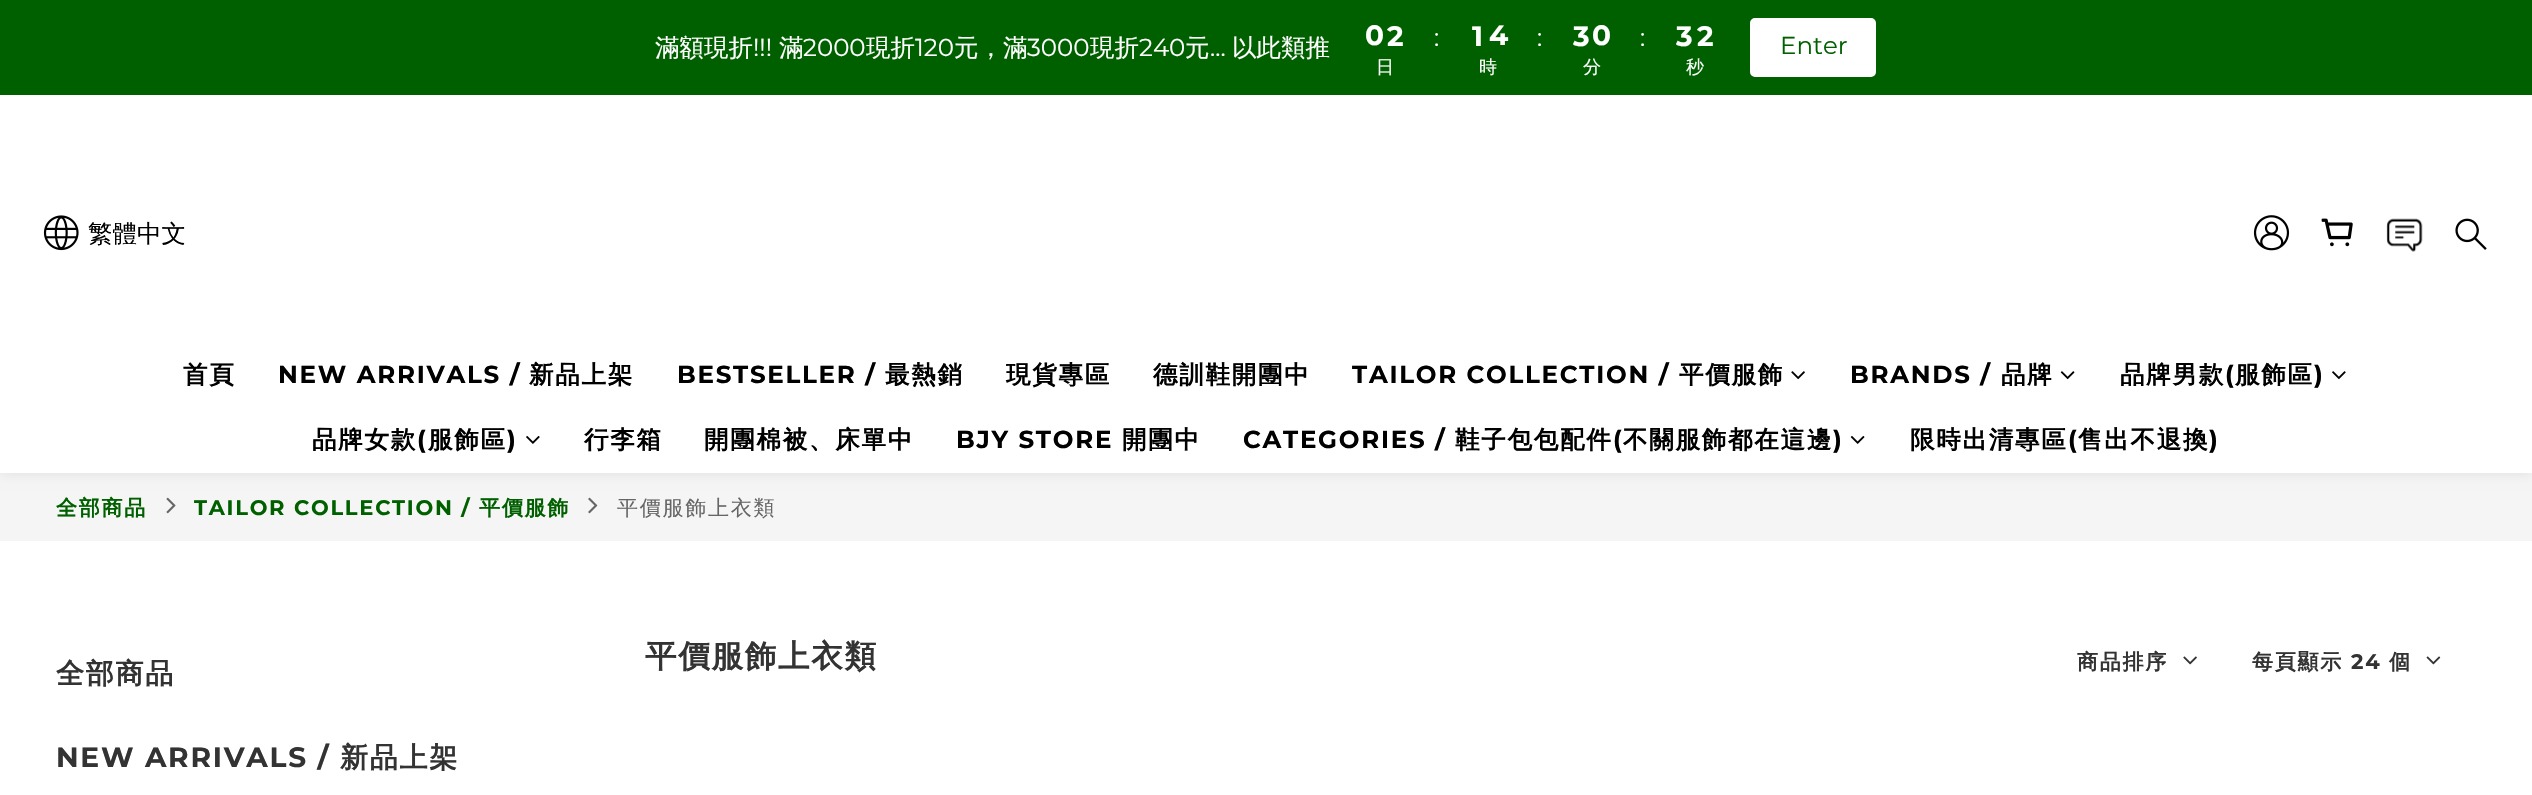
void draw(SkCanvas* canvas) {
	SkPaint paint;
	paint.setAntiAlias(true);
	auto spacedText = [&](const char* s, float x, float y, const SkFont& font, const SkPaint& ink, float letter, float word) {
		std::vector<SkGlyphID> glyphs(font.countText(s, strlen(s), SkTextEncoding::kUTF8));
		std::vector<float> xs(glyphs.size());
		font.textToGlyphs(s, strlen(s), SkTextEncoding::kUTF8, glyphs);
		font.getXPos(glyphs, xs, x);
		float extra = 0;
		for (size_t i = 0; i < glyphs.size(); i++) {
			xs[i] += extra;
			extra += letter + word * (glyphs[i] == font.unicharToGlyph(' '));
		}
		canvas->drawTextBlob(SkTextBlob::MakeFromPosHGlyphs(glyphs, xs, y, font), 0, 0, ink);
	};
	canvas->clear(0xffffffff);
	paint.setColor(0xfff5f5f5);
	canvas->drawRect(SkRect::MakeXYWH(0, 473, 2532, 68), paint);
	paint.setColor(0x0f000000);
	paint.setMaskFilter(SkMaskFilter::MakeBlur(kNormal_SkBlurStyle, 5));
	canvas->drawRect(SkRect::MakeXYWH(0, 98, 2532, 378), paint);
	paint.setMaskFilter(nullptr);
	paint.setColor(0xff006000);
	canvas->drawRect(SkRect::MakeXYWH(0, 0, 2532, 95), paint);
	SkFont f1(fontMgr->matchFamilyStyle("WenQuanYi Zen Hei", SkFontStyle(500, SkFontStyle::kNormal_Width, SkFontStyle::kUpright_Slant)), 24.5);
	f1.setSubpixel(true);
	paint.setColor(0xffffffff);
	canvas->drawString("滿額現折", 655, 56, f1, paint);
	SkFont f2(fontMgr->matchFamilyStyle("Montserrat", SkFontStyle::Normal()), 24.5);
	f2.setSubpixel(true);
	canvas->drawString("!!!", 753, 56, f2, paint);
	canvas->drawString("滿", 779, 56, f1, paint);
	canvas->drawString("2000", 803, 56, f2, paint);
	canvas->drawString("現折", 866, 56, f1, paint);
	canvas->drawString("120", 915, 56, f2, paint);
	canvas->drawString("元，滿", 954, 56, f1, paint);
	canvas->drawString("3000", 1027, 56, f2, paint);
	canvas->drawString("現折", 1090, 56, f1, paint);
	canvas->drawString("240", 1139, 56, f2, paint);
	canvas->drawString("元", 1185, 56, f1, paint);
	canvas->drawString("...", 1210, 56, f2, paint);
	canvas->drawString("以此類推", 1232, 56, f1, paint);
	SkFont f3(fontMgr->matchFamilyStyle("Montserrat", SkFontStyle::Bold()), 28);
	f3.setSubpixel(true);
	canvas->drawString("0", 1365, 45, f3, paint);
	canvas->drawString("2", 1387, 46, f3, paint);
	SkFont f4(fontMgr->matchFamilyStyle("WenQuanYi Zen Hei", SkFontStyle(500, SkFontStyle::kNormal_Width, SkFontStyle::kUpright_Slant)), 18);
	f4.setSubpixel(true);
	canvas->drawString("日", 1376, 73, f4, paint);
	canvas->drawString(":", 1434, 46, f2, paint);
	canvas->drawString("1", 1472, 46, f3, paint);
	canvas->drawString("4", 1489, 45, f3, paint);
	canvas->drawString("時", 1479, 73, f4, paint);
	canvas->drawString(":", 1537, 46, f2, paint);
	canvas->drawString("3", 1573, 46, f3, paint);
	canvas->drawString("0", 1592, 45, f3, paint);
	canvas->drawString("分", 1583, 73, f4, paint);
	canvas->drawString(":", 1640, 46, f2, paint);
	canvas->drawString("3", 1676, 46, f3, paint);
	canvas->drawString("2", 1697, 46, f3, paint);
	canvas->drawString("秒", 1686, 73, f4, paint);
	canvas->drawRoundRect(SkRect::MakeXYWH(1751, 19, 124, 57), 4, 4, paint);
	paint.setStroke(true);
	paint.setStrokeWidth(2);
	canvas->drawRoundRect(SkRect::MakeXYWH(1751, 19, 124, 57), 4, 4, paint);
	paint.setStroke(false);
	paint.setColor(0xff006000);
	canvas->drawString("Enter", 1780, 54, f2, paint);
	paint.setColor(0xffffffff);
	canvas->drawRect(SkRect::MakeXYWH(0, 95, 2532, 378), paint);
	canvas->drawImageRect(SkImages::DeferredFromEncodedData(SkData::MakeFromFileName("img1.png")), SkRect::MakeXYWH(43, 215, 36, 36), SkSamplingOptions());
	paint.setColor(0xff000000);
	canvas->drawString("繁體中文", 88, 242, f1, paint);
	canvas->drawImageRect(SkImages::DeferredFromEncodedData(SkData::MakeFromFileName("img2.png")), SkRect::MakeXYWH(2253, 215, 37, 36), SkSamplingOptions());
	canvas->drawImageRect(SkImages::DeferredFromEncodedData(SkData::MakeFromFileName("img3.png")), SkRect::MakeXYWH(2321, 218, 32, 29), SkSamplingOptions());
	canvas->drawImageRect(SkImages::DeferredFromEncodedData(SkData::MakeFromFileName("img4.png")), SkRect::MakeXYWH(2386, 218, 37, 34), SkSamplingOptions());
	canvas->drawImageRect(SkImages::DeferredFromEncodedData(SkData::MakeFromFileName("img5.png")), SkRect::MakeXYWH(2455, 218, 32, 32), SkSamplingOptions());
	SkFont f5(fontMgr->matchFamilyStyle("WenQuanYi Zen Hei", SkFontStyle::Bold()), 24.5);
	f5.setSubpixel(true);
	spacedText("首頁", 183, 383, f5, paint, 1.75, 0);
	SkFont f6(fontMgr->matchFamilyStyle("Montserrat", SkFontStyle::Bold()), 24.5);
	f6.setSubpixel(true);
	spacedText("NEW ARRIVALS /", 278, 383, f6, paint, 1.75, 0);
	spacedText("新品上架", 529, 383, f5, paint, 1.75, 0);
	spacedText("BESTSELLER /", 677, 383, f6, paint, 1.75, 0);
	spacedText("最熱銷", 885, 383, f5, paint, 1.75, 0);
	spacedText("現貨專區", 1006, 383, f5, paint, 1.75, 0);
	spacedText("德訓鞋開團中", 1153, 383, f5, paint, 1.75, 0);
	spacedText("TAILOR COLLECTION /", 1352, 383, f6, paint, 1.75, 0);
	spacedText("平價服飾", 1679, 383, f5, paint, 1.75, 0);
	canvas->drawImageRect(SkImages::DeferredFromEncodedData(SkData::MakeFromFileName("img6.png")), SkRect::MakeXYWH(1791, 371, 14, 9), SkSamplingOptions());
	spacedText("BRANDS /", 1850, 383, f6, paint, 1.75, 0);
	spacedText("品牌", 2001, 383, f5, paint, 1.75, 0);
	canvas->drawImageRect(SkImages::DeferredFromEncodedData(SkData::MakeFromFileName("img7.png")), SkRect::MakeXYWH(2060, 371, 15, 9), SkSamplingOptions());
	spacedText("品牌男款", 2120, 383, f5, paint, 1.75, 0);
	spacedText("(", 2225, 383, f6, paint, 1.75, 0);
	spacedText("服飾區", 2235, 383, f5, paint, 1.75, 0);
	spacedText(")", 2314, 383, f6, paint, 1.75, 0);
	canvas->drawImageRect(SkImages::DeferredFromEncodedData(SkData::MakeFromFileName("img8.png")), SkRect::MakeXYWH(2332, 371, 14, 9), SkSamplingOptions());
	spacedText("品牌女款", 312, 448, f5, paint, 1.75, 0);
	spacedText("(", 417, 448, f6, paint, 1.75, 0);
	spacedText("服飾區", 428, 448, f5, paint, 1.75, 0);
	spacedText(")", 507, 448, f6, paint, 1.75, 0);
	canvas->drawImageRect(SkImages::DeferredFromEncodedData(SkData::MakeFromFileName("img9.png")), SkRect::MakeXYWH(526, 436, 14, 8), SkSamplingOptions());
	spacedText("行李箱", 584, 448, f5, paint, 1.75, 0);
	spacedText("開團棉被、床單中", 704, 448, f5, paint, 1.75, 0);
	spacedText("BJY STORE", 956, 448, f6, paint, 1.75, 0);
	spacedText("開團中", 1122, 448, f5, paint, 1.75, 0);
	spacedText("CATEGORIES /", 1243, 448, f6, paint, 1.75, 0);
	spacedText("鞋子包包配件", 1455, 448, f5, paint, 1.75, 0);
	spacedText("(", 1613, 448, f6, paint, 1.75, 0);
	spacedText("不關服飾都在這邊", 1623, 448, f5, paint, 1.75, 0);
	spacedText(")", 1833, 448, f6, paint, 1.75, 0);
	canvas->drawImageRect(SkImages::DeferredFromEncodedData(SkData::MakeFromFileName("img10.png")), SkRect::MakeXYWH(1850, 436, 15, 8), SkSamplingOptions());
	spacedText("限時出清專區", 1910, 448, f5, paint, 1.75, 0);
	spacedText("(", 2068, 448, f6, paint, 1.75, 0);
	spacedText("售出不退換", 2078, 448, f5, paint, 1.75, 0);
	spacedText(")", 2209, 448, f6, paint, 1.75, 0);
	SkFont f7(fontMgr->matchFamilyStyle("WenQuanYi Zen Hei", SkFontStyle::Bold()), 21);
	f7.setSubpixel(true);
	paint.setColor(0xff006000);
	spacedText("全部商品", 56, 515, f7, paint, 1.75, 0);
	canvas->drawImageRect(SkImages::DeferredFromEncodedData(SkData::MakeFromFileName("img11.png")), SkRect::MakeXYWH(166, 497, 10, 17), SkSamplingOptions());
	SkFont f8(fontMgr->matchFamilyStyle("Montserrat", SkFontStyle::Bold()), 21);
	f8.setSubpixel(true);
	spacedText("TAILOR COLLECTION /", 194, 515, f8, paint, 1.75, 0);
	spacedText("平價服飾", 479, 515, f7, paint, 1.75, 0);
	canvas->drawImageRect(SkImages::DeferredFromEncodedData(SkData::MakeFromFileName("img12.png")), SkRect::MakeXYWH(588, 497, 10, 17), SkSamplingOptions());
	SkFont f9(fontMgr->matchFamilyStyle("WenQuanYi Zen Hei", SkFontStyle(500, SkFontStyle::kNormal_Width, SkFontStyle::kUpright_Slant)), 21);
	f9.setSubpixel(true);
	paint.setColor(0xff666666);
	spacedText("平價服飾上衣類", 617, 515, f9, paint, 1.75, 0);
	SkFont f10(fontMgr->matchFamilyStyle("WenQuanYi Zen Hei", SkFontStyle::Bold()), 28);
	f10.setSubpixel(true);
	paint.setColor(0xff333333);
	spacedText("全部商品", 56, 683, f10, paint, 1.75, 0);
	spacedText("NEW ARRIVALS /", 56, 767, f3, paint, 1.75, 0);
	spacedText("新品上架", 340, 767, f10, paint, 1.75, 0);
	SkFont f11(fontMgr->matchFamilyStyle("WenQuanYi Zen Hei", SkFontStyle::Bold()), 31.5);
	f11.setSubpixel(true);
	spacedText("平價服飾上衣類", 645, 667, f11, paint, 1.75, 0);
	spacedText("商品排序", 2077, 669, f7, paint, 1.75, 0);
	canvas->drawImageRect(SkImages::DeferredFromEncodedData(SkData::MakeFromFileName("img13.png")), SkRect::MakeXYWH(2183, 656, 14, 9), SkSamplingOptions());
	spacedText("每頁顯示", 2252, 669, f7, paint, 1.75, 0);
	spacedText("24", 2351, 669, f8, paint, 1.75, 0);
	spacedText("個", 2389, 669, f7, paint, 1.75, 0);
	canvas->drawImageRect(SkImages::DeferredFromEncodedData(SkData::MakeFromFileName("img14.png")), SkRect::MakeXYWH(2426, 656, 15, 9), SkSamplingOptions());
}
